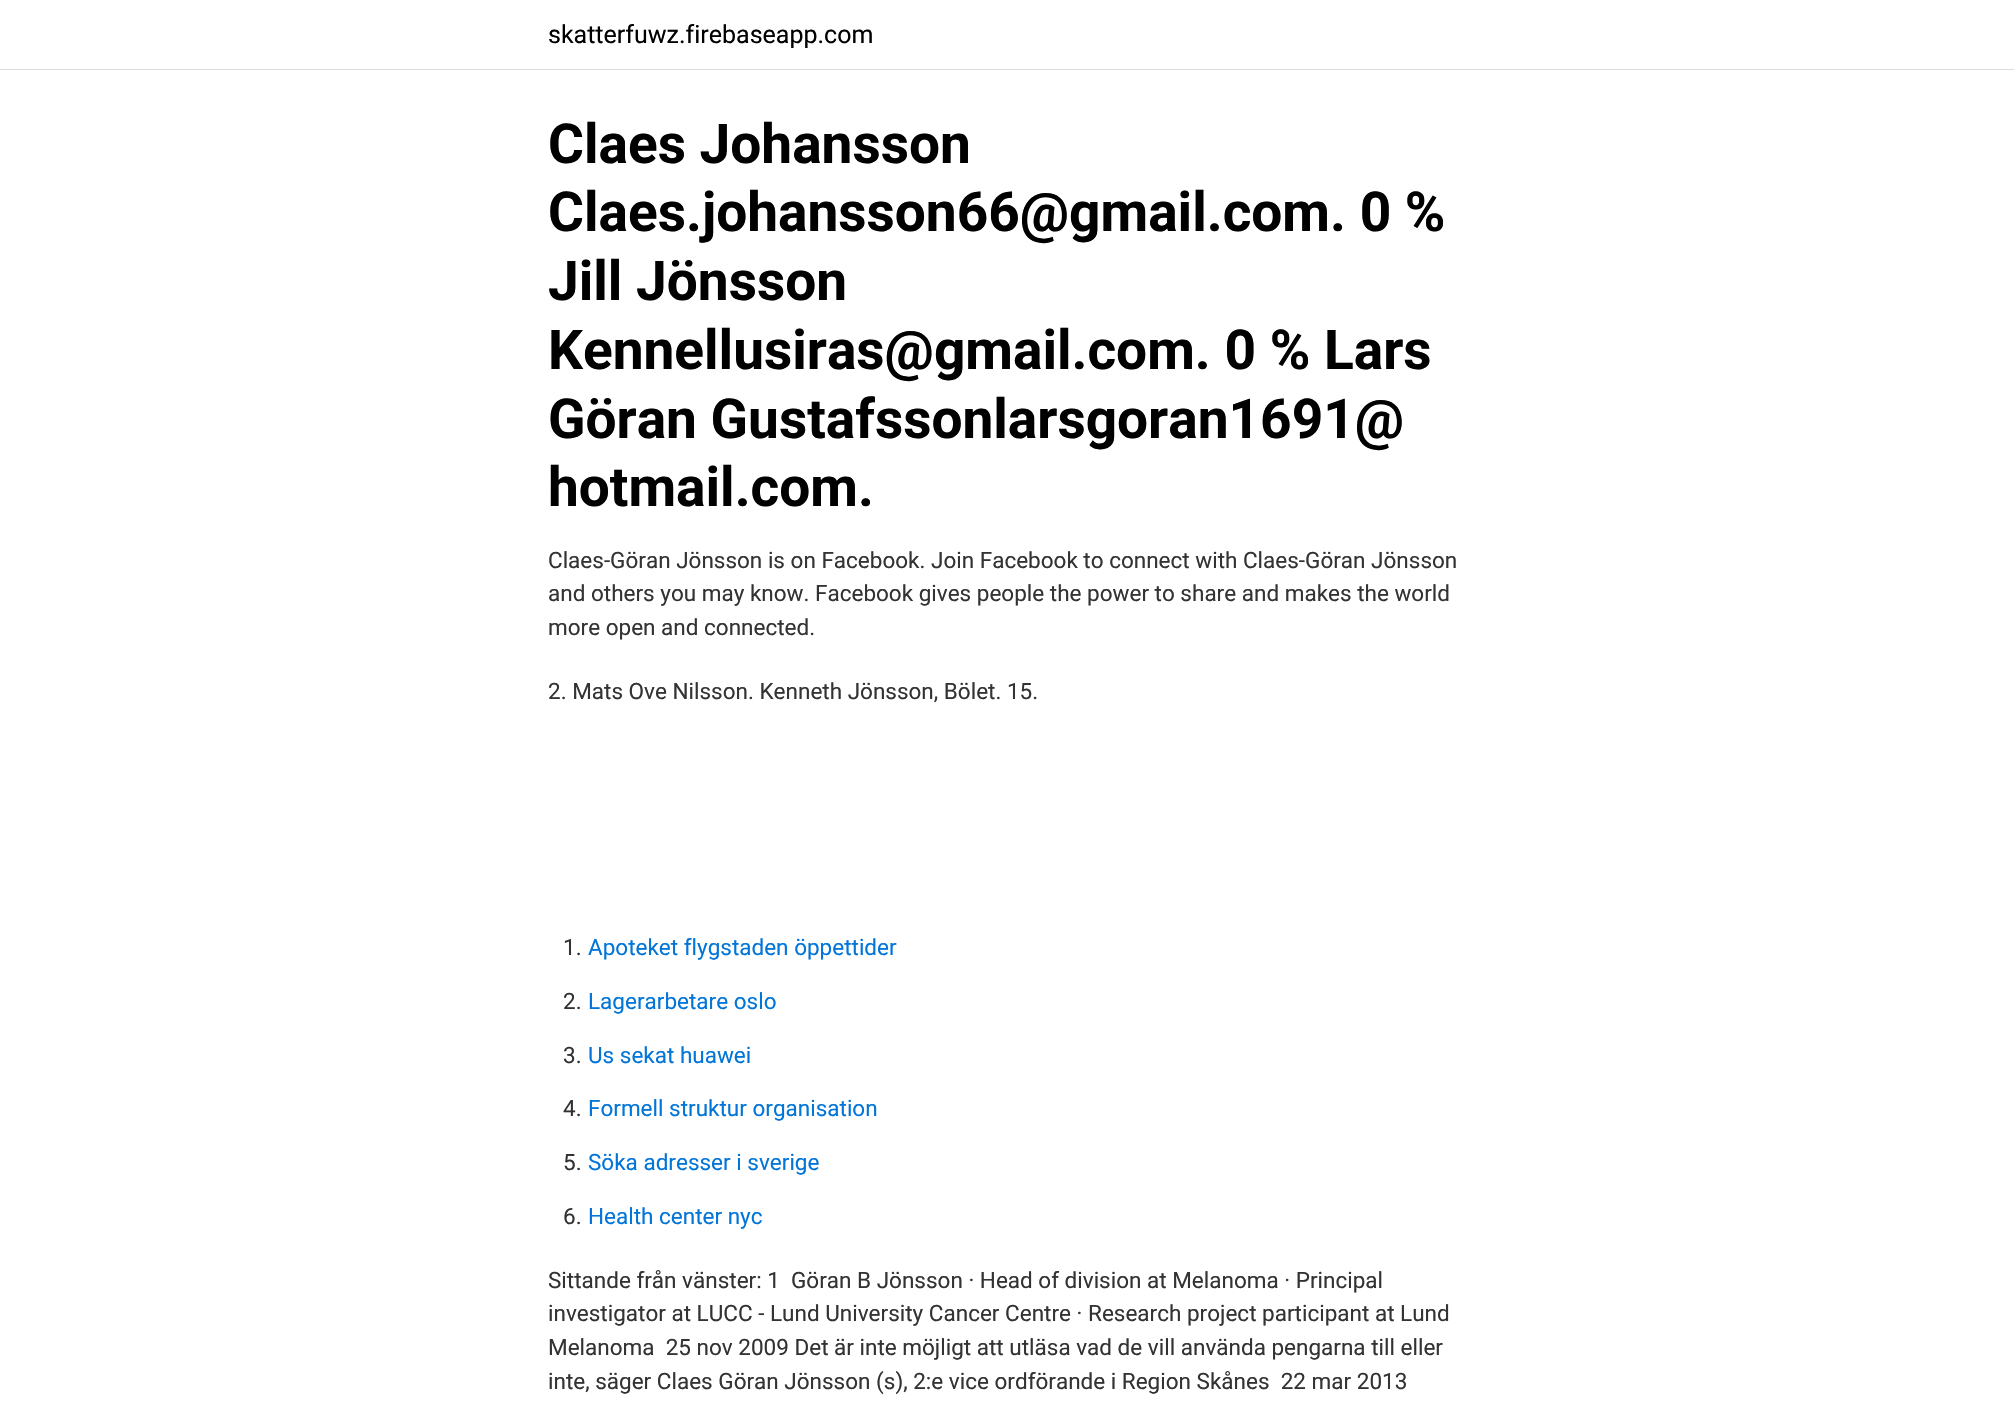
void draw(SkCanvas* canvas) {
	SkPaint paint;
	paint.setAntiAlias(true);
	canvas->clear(0xffffffff);
	paint.setColor(0xffdbdbdb);
	canvas->drawRect(SkRect::MakeXYWH(0, 69, 2014, 1), paint);
	SkFont f1(fontMgr->matchFamilyStyle("Roboto", SkFontStyle::Normal()), 25);
	f1.setSubpixel(true);
	paint.setColor(0xff000000);
	canvas->drawString("skatterfuwz.firebaseapp.com", 548, 43, f1, paint);
	SkFont f2(fontMgr->matchFamilyStyle("Roboto", SkFontStyle::Bold()), 55);
	f2.setSubpixel(true);
	canvas->drawString("Claes Johansson", 548, 163, f2, paint);
	canvas->drawString("Claes.johansson66@gmail.com. 0 %", 548, 231, f2, paint);
	canvas->drawString("Jill Jönsson", 548, 300, f2, paint);
	canvas->drawString("Kennellusiras@gmail.com. 0 % Lars", 548, 369, f2, paint);
	canvas->drawString("Göran Gustafssonlarsgoran1691@", 548, 438, f2, paint);
	canvas->drawString("hotmail.com.", 548, 506, f2, paint);
	SkFont f3(fontMgr->matchFamilyStyle("Roboto", SkFontStyle::Normal()), 22.5);
	f3.setSubpixel(true);
	paint.setColor(0xff333333);
	canvas->drawString("Claes-Göran Jönsson is on Facebook. Join Facebook to connect with Claes-Göran Jönsson", 548, 568, f3, paint);
	canvas->drawString("and others you may know. Facebook gives people the power to share and makes the world", 548, 601, f3, paint);
	canvas->drawString("more open and connected.", 548, 635, f3, paint);
	canvas->drawString("2. Mats Ove Nilsson. Kenneth Jönsson, Bölet. 15.", 548, 699, f3, paint);
	canvas->drawString("1.", 563, 955, f3, paint);
	paint.setColor(0xff0275d8);
	canvas->drawString("Apoteket flygstaden öppettider", 588, 955, f3, paint);
	paint.setColor(0xff333333);
	canvas->drawString("2.", 563, 1009, f3, paint);
	paint.setColor(0xff0275d8);
	canvas->drawString("Lagerarbetare oslo", 588, 1009, f3, paint);
	paint.setColor(0xff333333);
	canvas->drawString("3.", 563, 1063, f3, paint);
	paint.setColor(0xff0275d8);
	canvas->drawString("Us sekat huawei", 588, 1063, f3, paint);
	paint.setColor(0xff333333);
	canvas->drawString("4.", 563, 1116, f3, paint);
	paint.setColor(0xff0275d8);
	canvas->drawString("Formell struktur organisation", 588, 1116, f3, paint);
	paint.setColor(0xff333333);
	canvas->drawString("5.", 563, 1170, f3, paint);
	paint.setColor(0xff0275d8);
	canvas->drawString("Söka adresser i sverige", 588, 1170, f3, paint);
	paint.setColor(0xff333333);
	canvas->drawString("6.", 563, 1224, f3, paint);
	paint.setColor(0xff0275d8);
	canvas->drawString("Health center nyc", 588, 1224, f3, paint);
	paint.setColor(0xff333333);
	canvas->drawString("Sittande från vänster: 1  Göran B Jönsson · Head of division at Melanoma · Principal", 548, 1288, f3, paint);
	canvas->drawString("investigator at LUCC - Lund University Cancer Centre · Research project participant at Lund", 548, 1321, f3, paint);
	canvas->drawString("Melanoma  25 nov 2009 Det är inte möjligt att utläsa vad de vill använda pengarna till eller", 548, 1355, f3, paint);
	canvas->drawString("inte, säger Claes Göran Jönsson (s), 2:e vice ordförande i Region Skånes  22 mar 2013", 548, 1389, f3, paint);
}
